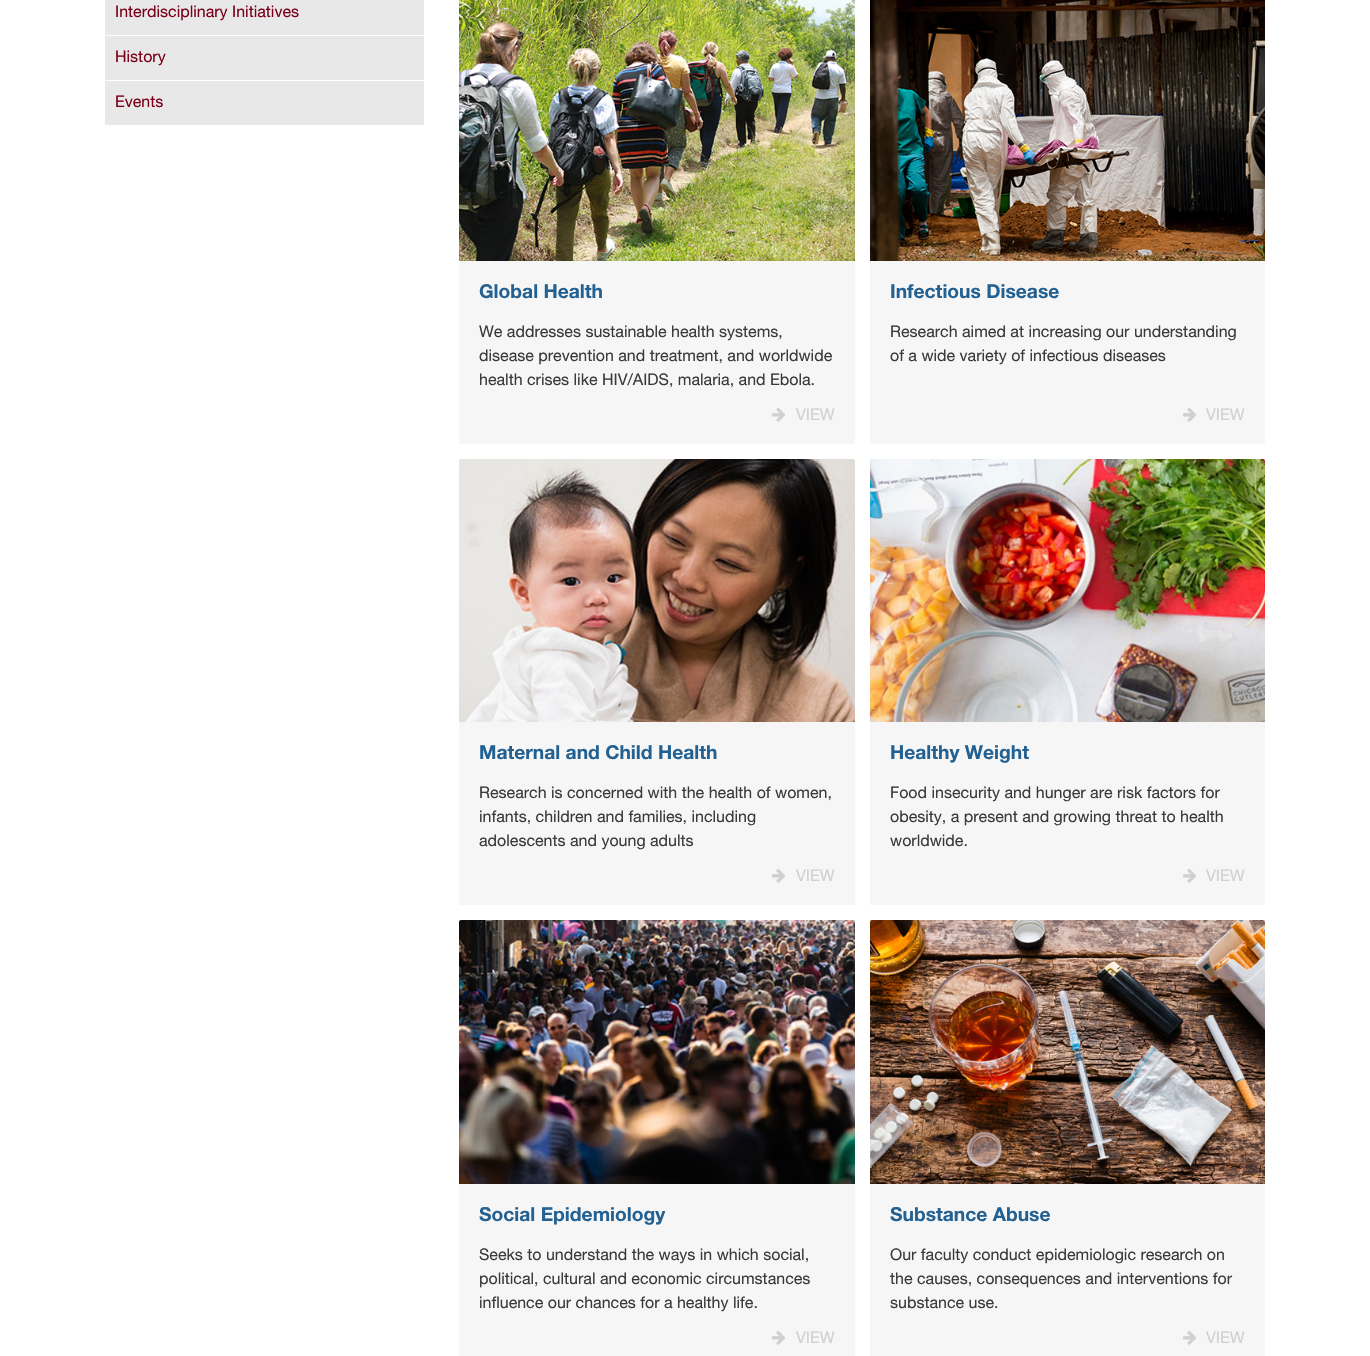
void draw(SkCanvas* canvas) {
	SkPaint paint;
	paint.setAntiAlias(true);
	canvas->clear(0xffffffff);
	paint.setColor(0xffe8e8e9);
	canvas->drawRect(SkRect::MakeXYWH(105, 0, 319, 125), paint);
	SkFont f1(fontMgr->matchFamilyStyle("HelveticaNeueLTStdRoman", SkFontStyle::Normal()), 16);
	f1.setSubpixel(true);
	paint.setColor(0xff7a0019);
	canvas->drawString("Interdisciplinary Initiatives", 115, 17, f1, paint);
	paint.setColor(0xffffffff);
	canvas->drawRect(SkRect::MakeXYWH(105, 35, 319, 1), paint);
	paint.setColor(0xff7a0019);
	canvas->drawString("History", 115, 62, f1, paint);
	paint.setColor(0xffffffff);
	canvas->drawRect(SkRect::MakeXYWH(105, 80, 319, 1), paint);
	paint.setColor(0xff7a0019);
	canvas->drawString("Events", 115, 107, f1, paint);
	paint.setColor(0xfff6f6f6);
	canvas->drawRoundRect(SkRect::MakeXYWH(459, -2, 396, 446), 2, 2, paint);
	canvas->drawImageRect(SkImages::DeferredFromEncodedData(SkData::MakeFromFileName("img1.png")), SkRect::MakeXYWH(459, 0, 396, 261), SkSamplingOptions());
	SkFont f2(fontMgr->matchFamilyStyle("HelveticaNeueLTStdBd", SkFontStyle::Normal()), 19.25);
	f2.setSubpixel(true);
	paint.setColor(0xff236192);
	canvas->drawString("Global Health", 479, 298, f2, paint);
	paint.setColor(0xff3a3a3a);
	canvas->drawString("We addresses sustainable health systems,", 479, 337, f1, paint);
	canvas->drawString("disease prevention and treatment, and worldwide", 479, 361, f1, paint);
	canvas->drawString("health crises like HIV/AIDS, malaria, and Ebola.", 479, 385, f1, paint);
	canvas->drawImageRect(SkImages::DeferredFromEncodedData(SkData::MakeFromFileName("img2.png")), SkRect::MakeXYWH(772, 408, 13, 14), SkSamplingOptions());
	paint.setColor(0xffd0d0ce);
	canvas->drawString("VIEW", 796, 420, f1, paint);
	paint.setColor(0xfff6f6f6);
	canvas->drawRoundRect(SkRect::MakeXYWH(870, -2, 395, 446), 2, 2, paint);
	canvas->drawImageRect(SkImages::DeferredFromEncodedData(SkData::MakeFromFileName("img3.png")), SkRect::MakeXYWH(870, 0, 395, 261), SkSamplingOptions());
	paint.setColor(0xff236192);
	canvas->drawString("Infectious Disease", 890, 298, f2, paint);
	paint.setColor(0xff3a3a3a);
	canvas->drawString("Research aimed at increasing our understanding", 890, 337, f1, paint);
	canvas->drawString("of a wide variety of infectious diseases", 890, 361, f1, paint);
	canvas->drawImageRect(SkImages::DeferredFromEncodedData(SkData::MakeFromFileName("img2.png")), SkRect::MakeXYWH(1183, 408, 13, 14), SkSamplingOptions());
	paint.setColor(0xffd0d0ce);
	canvas->drawString("VIEW", 1206, 420, f1, paint);
	paint.setColor(0xfff6f6f6);
	canvas->drawRoundRect(SkRect::MakeXYWH(459, 459, 396, 446), 2, 2, paint);
	canvas->drawImageRect(SkImages::DeferredFromEncodedData(SkData::MakeFromFileName("img4.png")), SkRect::MakeXYWH(459, 459, 396, 263), SkSamplingOptions());
	paint.setColor(0xff236192);
	canvas->drawString("Maternal and Child Health", 479, 759, f2, paint);
	paint.setColor(0xff3a3a3a);
	canvas->drawString("Research is concerned with the health of women,", 479, 798, f1, paint);
	canvas->drawString("infants, children and families, including", 479, 822, f1, paint);
	canvas->drawString("adolescents and young adults", 479, 846, f1, paint);
	canvas->drawImageRect(SkImages::DeferredFromEncodedData(SkData::MakeFromFileName("img2.png")), SkRect::MakeXYWH(772, 869, 13, 14), SkSamplingOptions());
	paint.setColor(0xffd0d0ce);
	canvas->drawString("VIEW", 796, 881, f1, paint);
	paint.setColor(0xfff6f6f6);
	canvas->drawRoundRect(SkRect::MakeXYWH(870, 459, 395, 446), 2, 2, paint);
	canvas->drawImageRect(SkImages::DeferredFromEncodedData(SkData::MakeFromFileName("img5.png")), SkRect::MakeXYWH(870, 459, 395, 263), SkSamplingOptions());
	paint.setColor(0xff236192);
	canvas->drawString("Healthy Weight", 890, 759, f2, paint);
	paint.setColor(0xff3a3a3a);
	canvas->drawString("Food insecurity and hunger are risk factors for", 890, 798, f1, paint);
	canvas->drawString("obesity, a present and growing threat to health", 890, 822, f1, paint);
	canvas->drawString("worldwide.", 890, 846, f1, paint);
	canvas->drawImageRect(SkImages::DeferredFromEncodedData(SkData::MakeFromFileName("img2.png")), SkRect::MakeXYWH(1183, 869, 13, 14), SkSamplingOptions());
	paint.setColor(0xffd0d0ce);
	canvas->drawString("VIEW", 1206, 881, f1, paint);
	paint.setColor(0xfff6f6f6);
	canvas->drawRoundRect(SkRect::MakeXYWH(459, 920, 396, 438), 2, 2, paint);
	canvas->drawImageRect(SkImages::DeferredFromEncodedData(SkData::MakeFromFileName("img6.png")), SkRect::MakeXYWH(459, 920, 396, 264), SkSamplingOptions());
	paint.setColor(0xff236192);
	canvas->drawString("Social Epidemiology", 479, 1221, f2, paint);
	paint.setColor(0xff3a3a3a);
	canvas->drawString("Seeks to understand the ways in which social,", 479, 1260, f1, paint);
	canvas->drawString("political, cultural and economic circumstances", 479, 1284, f1, paint);
	canvas->drawString("influence our chances for a healthy life.", 479, 1308, f1, paint);
	canvas->drawImageRect(SkImages::DeferredFromEncodedData(SkData::MakeFromFileName("img2.png")), SkRect::MakeXYWH(772, 1331, 13, 14), SkSamplingOptions());
	paint.setColor(0xffd0d0ce);
	canvas->drawString("VIEW", 796, 1343, f1, paint);
	paint.setColor(0xfff6f6f6);
	canvas->drawRoundRect(SkRect::MakeXYWH(870, 920, 395, 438), 2, 2, paint);
	canvas->drawImageRect(SkImages::DeferredFromEncodedData(SkData::MakeFromFileName("img7.png")), SkRect::MakeXYWH(870, 920, 395, 264), SkSamplingOptions());
	paint.setColor(0xff236192);
	canvas->drawString("Substance Abuse", 890, 1221, f2, paint);
	paint.setColor(0xff3a3a3a);
	canvas->drawString("Our faculty conduct epidemiologic research on", 890, 1260, f1, paint);
	canvas->drawString("the causes, consequences and interventions for", 890, 1284, f1, paint);
	canvas->drawString("substance use.", 890, 1308, f1, paint);
	canvas->drawImageRect(SkImages::DeferredFromEncodedData(SkData::MakeFromFileName("img2.png")), SkRect::MakeXYWH(1183, 1331, 13, 14), SkSamplingOptions());
	paint.setColor(0xffd0d0ce);
	canvas->drawString("VIEW", 1206, 1343, f1, paint);
}
